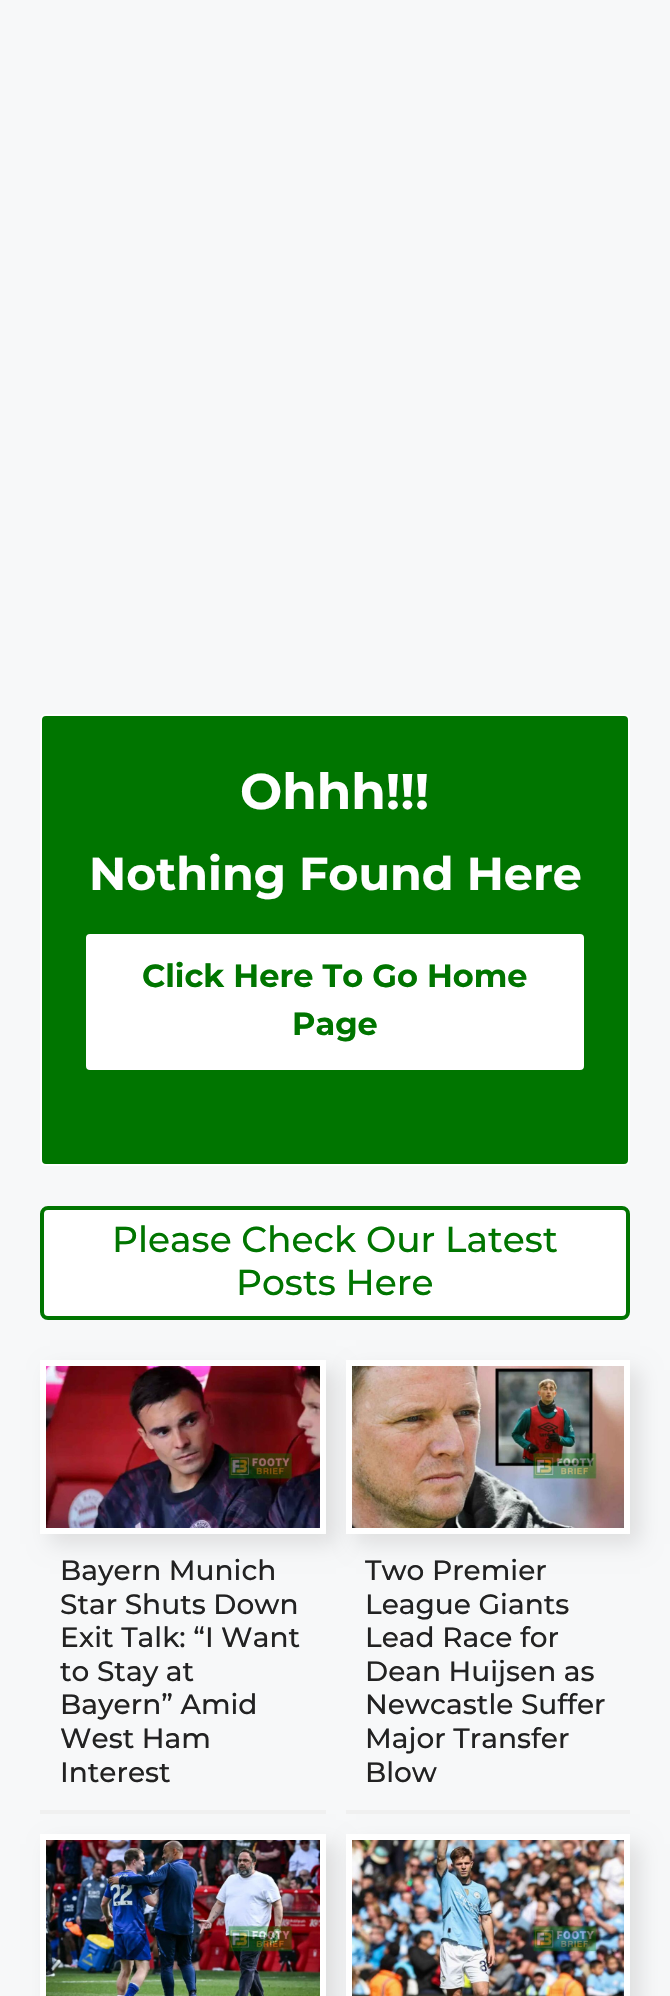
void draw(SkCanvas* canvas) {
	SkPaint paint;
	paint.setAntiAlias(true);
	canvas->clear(0xfff7f8f9);
	paint.setColor(0xff007500);
	canvas->drawRoundRect(SkRect::MakeXYWH(41, 715, 588, 450), 5, 5, paint);
	paint.setStroke(true);
	paint.setStrokeWidth(2);
	paint.setColor(0xffffffff);
	canvas->drawRoundRect(SkRect::MakeXYWH(41, 715, 588, 450), 5, 5, paint);
	SkFont f1(fontMgr->matchFamilyStyle("Montserrat", SkFontStyle::Bold()), 50);
	f1.setSubpixel(true);
	paint.setStroke(false);
	canvas->drawString("Ohhh!!!", 240, 809, f1, paint);
	SkFont f2(fontMgr->matchFamilyStyle("Montserrat", SkFontStyle::Bold()), 46);
	f2.setSubpixel(true);
	canvas->drawString("Nothing Found Here", 89, 890, f2, paint);
	canvas->drawRoundRect(SkRect::MakeXYWH(84, 932, 502, 140), 6, 6, paint);
	paint.setStroke(true);
	paint.setStrokeWidth(4);
	paint.setColor(0xff007500);
	canvas->drawRoundRect(SkRect::MakeXYWH(84, 932, 502, 140), 6, 6, paint);
	SkFont f3(fontMgr->matchFamilyStyle("Montserrat", SkFontStyle::Bold()), 32);
	f3.setSubpixel(true);
	paint.setStroke(false);
	canvas->drawString("Click Here To Go Home", 142, 987, f3, paint);
	canvas->drawString("Page", 292, 1035, f3, paint);
	paint.setColor(0xffffffff);
	canvas->drawRoundRect(SkRect::MakeXYWH(42, 1208, 586, 110), 6, 6, paint);
	paint.setStroke(true);
	paint.setColor(0xff007500);
	canvas->drawRoundRect(SkRect::MakeXYWH(42, 1208, 586, 110), 6, 6, paint);
	SkFont f4(fontMgr->matchFamilyStyle("Montserrat", SkFontStyle(500, SkFontStyle::kNormal_Width, SkFontStyle::kUpright_Slant)), 36);
	f4.setSubpixel(true);
	paint.setStroke(false);
	canvas->drawString("Please Check Our Latest", 112, 1252, f4, paint);
	canvas->drawString("Posts Here", 236, 1295, f4, paint);
	paint.setColor(0xfff0f0f0);
	canvas->drawRect(SkRect::MakeXYWH(40, 1810, 286, 4), paint);
	paint.setColor(0x1a000000);
	paint.setMaskFilter(SkMaskFilter::MakeBlur(kNormal_SkBlurStyle, 10));
	canvas->drawRect(SkRect::MakeXYWH(50, 1370, 286, 174), paint);
	paint.setMaskFilter(nullptr);
	paint.setStroke(true);
	paint.setStrokeWidth(6);
	paint.setColor(0xffffffff);
	canvas->drawRect(SkRect::MakeXYWH(43, 1363, 280, 168), paint);
	canvas->drawImageRect(SkImages::DeferredFromEncodedData(SkData::MakeFromFileName("img1.png")), SkRect::MakeXYWH(46, 1366, 274, 162), SkSamplingOptions());
	SkFont f5(fontMgr->matchFamilyStyle("Montserrat", SkFontStyle(500, SkFontStyle::kNormal_Width, SkFontStyle::kUpright_Slant)), 28);
	f5.setSubpixel(true);
	paint.setStroke(false);
	paint.setColor(0xff222222);
	canvas->drawString("Bayern Munich", 60, 1580, f5, paint);
	canvas->drawString("Star Shuts Down", 60, 1614, f5, paint);
	canvas->drawString("Exit Talk: “I Want", 60, 1647, f5, paint);
	canvas->drawString("to Stay at", 60, 1681, f5, paint);
	canvas->drawString("Bayern” Amid", 60, 1714, f5, paint);
	canvas->drawString("West Ham", 60, 1748, f5, paint);
	canvas->drawString("Interest", 60, 1782, f5, paint);
	paint.setColor(0xfff0f0f0);
	canvas->drawRect(SkRect::MakeXYWH(346, 1810, 284, 4), paint);
	paint.setColor(0x1a000000);
	paint.setMaskFilter(SkMaskFilter::MakeBlur(kNormal_SkBlurStyle, 10));
	canvas->drawRect(SkRect::MakeXYWH(356, 1370, 284, 174), paint);
	paint.setMaskFilter(nullptr);
	paint.setStroke(true);
	paint.setColor(0xffffffff);
	canvas->drawRect(SkRect::MakeXYWH(349, 1363, 278, 168), paint);
	canvas->drawImageRect(SkImages::DeferredFromEncodedData(SkData::MakeFromFileName("img2.png")), SkRect::MakeXYWH(352, 1366, 272, 162), SkSamplingOptions());
	paint.setStroke(false);
	paint.setColor(0xff222222);
	canvas->drawString("Two Premier", 365, 1580, f5, paint);
	canvas->drawString("League Giants", 365, 1614, f5, paint);
	canvas->drawString("Lead Race for", 365, 1647, f5, paint);
	canvas->drawString("Dean Huijsen as", 365, 1681, f5, paint);
	canvas->drawString("Newcastle Suffer", 365, 1714, f5, paint);
	canvas->drawString("Major Transfer", 365, 1748, f5, paint);
	canvas->drawString("Blow", 365, 1782, f5, paint);
	paint.setColor(0x1a000000);
	paint.setMaskFilter(SkMaskFilter::MakeBlur(kNormal_SkBlurStyle, 10));
	canvas->drawRect(SkRect::MakeXYWH(50, 1844, 286, 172), paint);
	paint.setMaskFilter(nullptr);
	paint.setStroke(true);
	paint.setColor(0xffffffff);
	canvas->drawRect(SkRect::MakeXYWH(43, 1837, 280, 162), paint);
	canvas->drawImageRect(SkImages::DeferredFromEncodedData(SkData::MakeFromFileName("img3.png")), SkRect::MakeXYWH(46, 1840, 274, 156), SkSamplingOptions());
	paint.setStroke(false);
	paint.setColor(0x1a000000);
	paint.setMaskFilter(SkMaskFilter::MakeBlur(kNormal_SkBlurStyle, 10));
	canvas->drawRect(SkRect::MakeXYWH(356, 1844, 284, 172), paint);
	paint.setMaskFilter(nullptr);
	paint.setStroke(true);
	paint.setColor(0xffffffff);
	canvas->drawRect(SkRect::MakeXYWH(349, 1837, 278, 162), paint);
	canvas->drawImageRect(SkImages::DeferredFromEncodedData(SkData::MakeFromFileName("img4.png")), SkRect::MakeXYWH(352, 1840, 272, 156), SkSamplingOptions());
}
